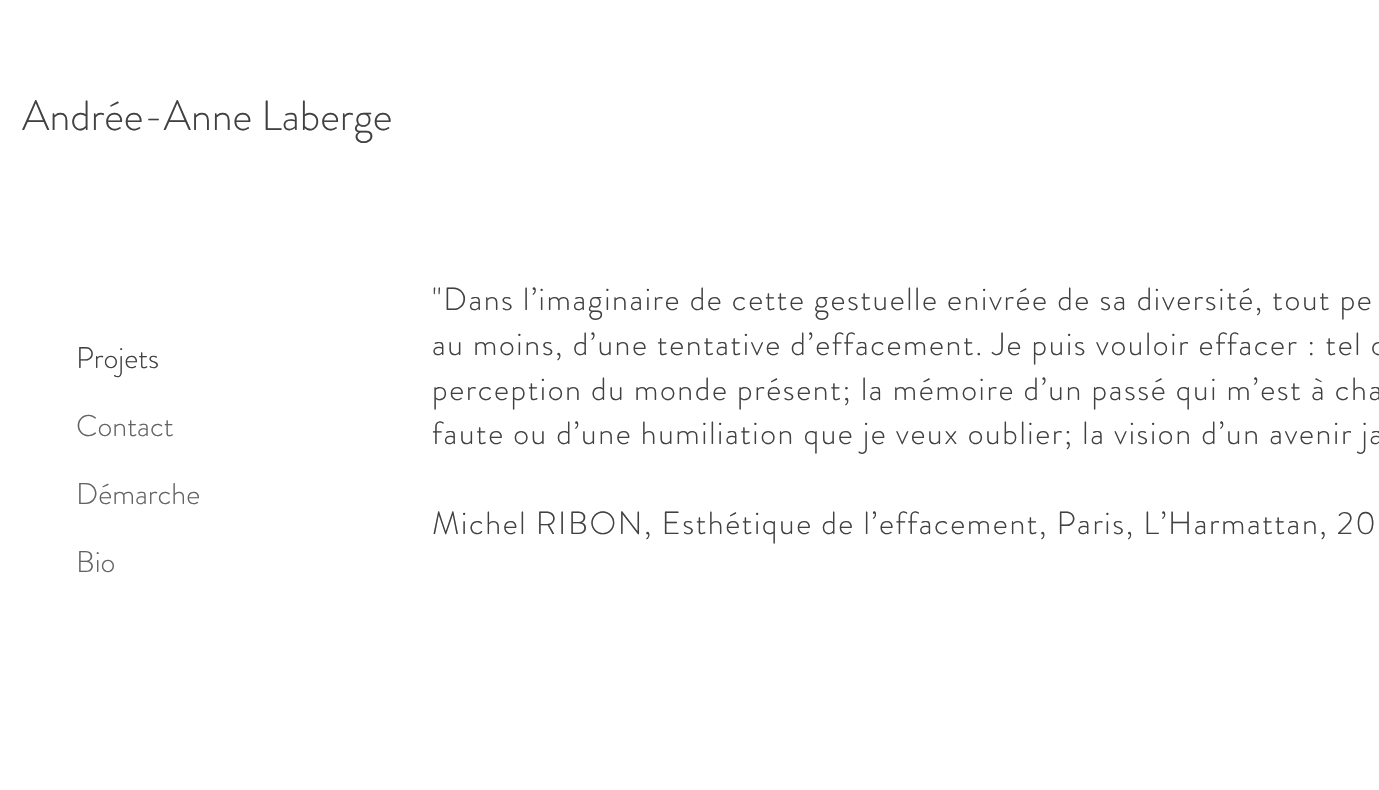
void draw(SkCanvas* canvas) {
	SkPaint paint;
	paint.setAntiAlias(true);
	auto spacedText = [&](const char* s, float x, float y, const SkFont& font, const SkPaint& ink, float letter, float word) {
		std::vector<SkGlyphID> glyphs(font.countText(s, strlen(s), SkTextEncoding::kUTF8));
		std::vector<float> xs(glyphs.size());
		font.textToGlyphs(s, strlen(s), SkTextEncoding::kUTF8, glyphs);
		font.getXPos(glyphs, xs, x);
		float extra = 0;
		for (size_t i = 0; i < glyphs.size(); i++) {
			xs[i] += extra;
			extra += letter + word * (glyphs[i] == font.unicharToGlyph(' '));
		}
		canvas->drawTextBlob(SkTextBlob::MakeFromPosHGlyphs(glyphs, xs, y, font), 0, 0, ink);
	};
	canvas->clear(0xffffffff);
	SkFont f1(fontMgr->matchFamilyStyle("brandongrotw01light", SkFontStyle(300, SkFontStyle::kNormal_Width, SkFontStyle::kUpright_Slant)), 42);
	f1.setSubpixel(true);
	paint.setColor(0xff414141);
	canvas->drawString("Andrée-Anne Laberge", 22, 130, f1, paint);
	SkFont f2(fontMgr->matchFamilyStyle("brandongrotw01light", SkFontStyle(300, SkFontStyle::kNormal_Width, SkFontStyle::kUpright_Slant)), 30);
	f2.setSubpixel(true);
	canvas->drawString("Projets", 76, 368, f2, paint);
	paint.setColor(0xff636363);
	canvas->drawString("Contact", 76, 436, f2, paint);
	canvas->drawString("Démarche", 76, 504, f2, paint);
	canvas->drawString("Bio", 76, 572, f2, paint);
	SkFont f3(fontMgr->matchFamilyStyle("brandongrotw01light", SkFontStyle(300, SkFontStyle::kNormal_Width, SkFontStyle::kUpright_Slant)), 32);
	f3.setSubpixel(true);
	paint.setColor(0xff414141);
	spacedText("\"Dans l’imaginaire de cette gestuelle enivrée de sa diversité, tout pe", 432, 310, f3, paint, 1.6, 0);
	spacedText("au moins, d’une tentative d’effacement. Je puis vouloir effacer : tel o", 432, 355, f3, paint, 1.6, 0);
	spacedText("perception du monde présent; la mémoire d’un passé qui m’est à cha", 432, 400, f3, paint, 1.6, 0);
	spacedText("faute ou d’une humiliation que je veux oublier; la vision d’un avenir ja", 432, 444, f3, paint, 1.6, 0);
	spacedText("Michel RIBON, Esthétique de l’effacement, Paris, L’Harmattan, 20", 432, 534, f3, paint, 1.6, 0);
}
